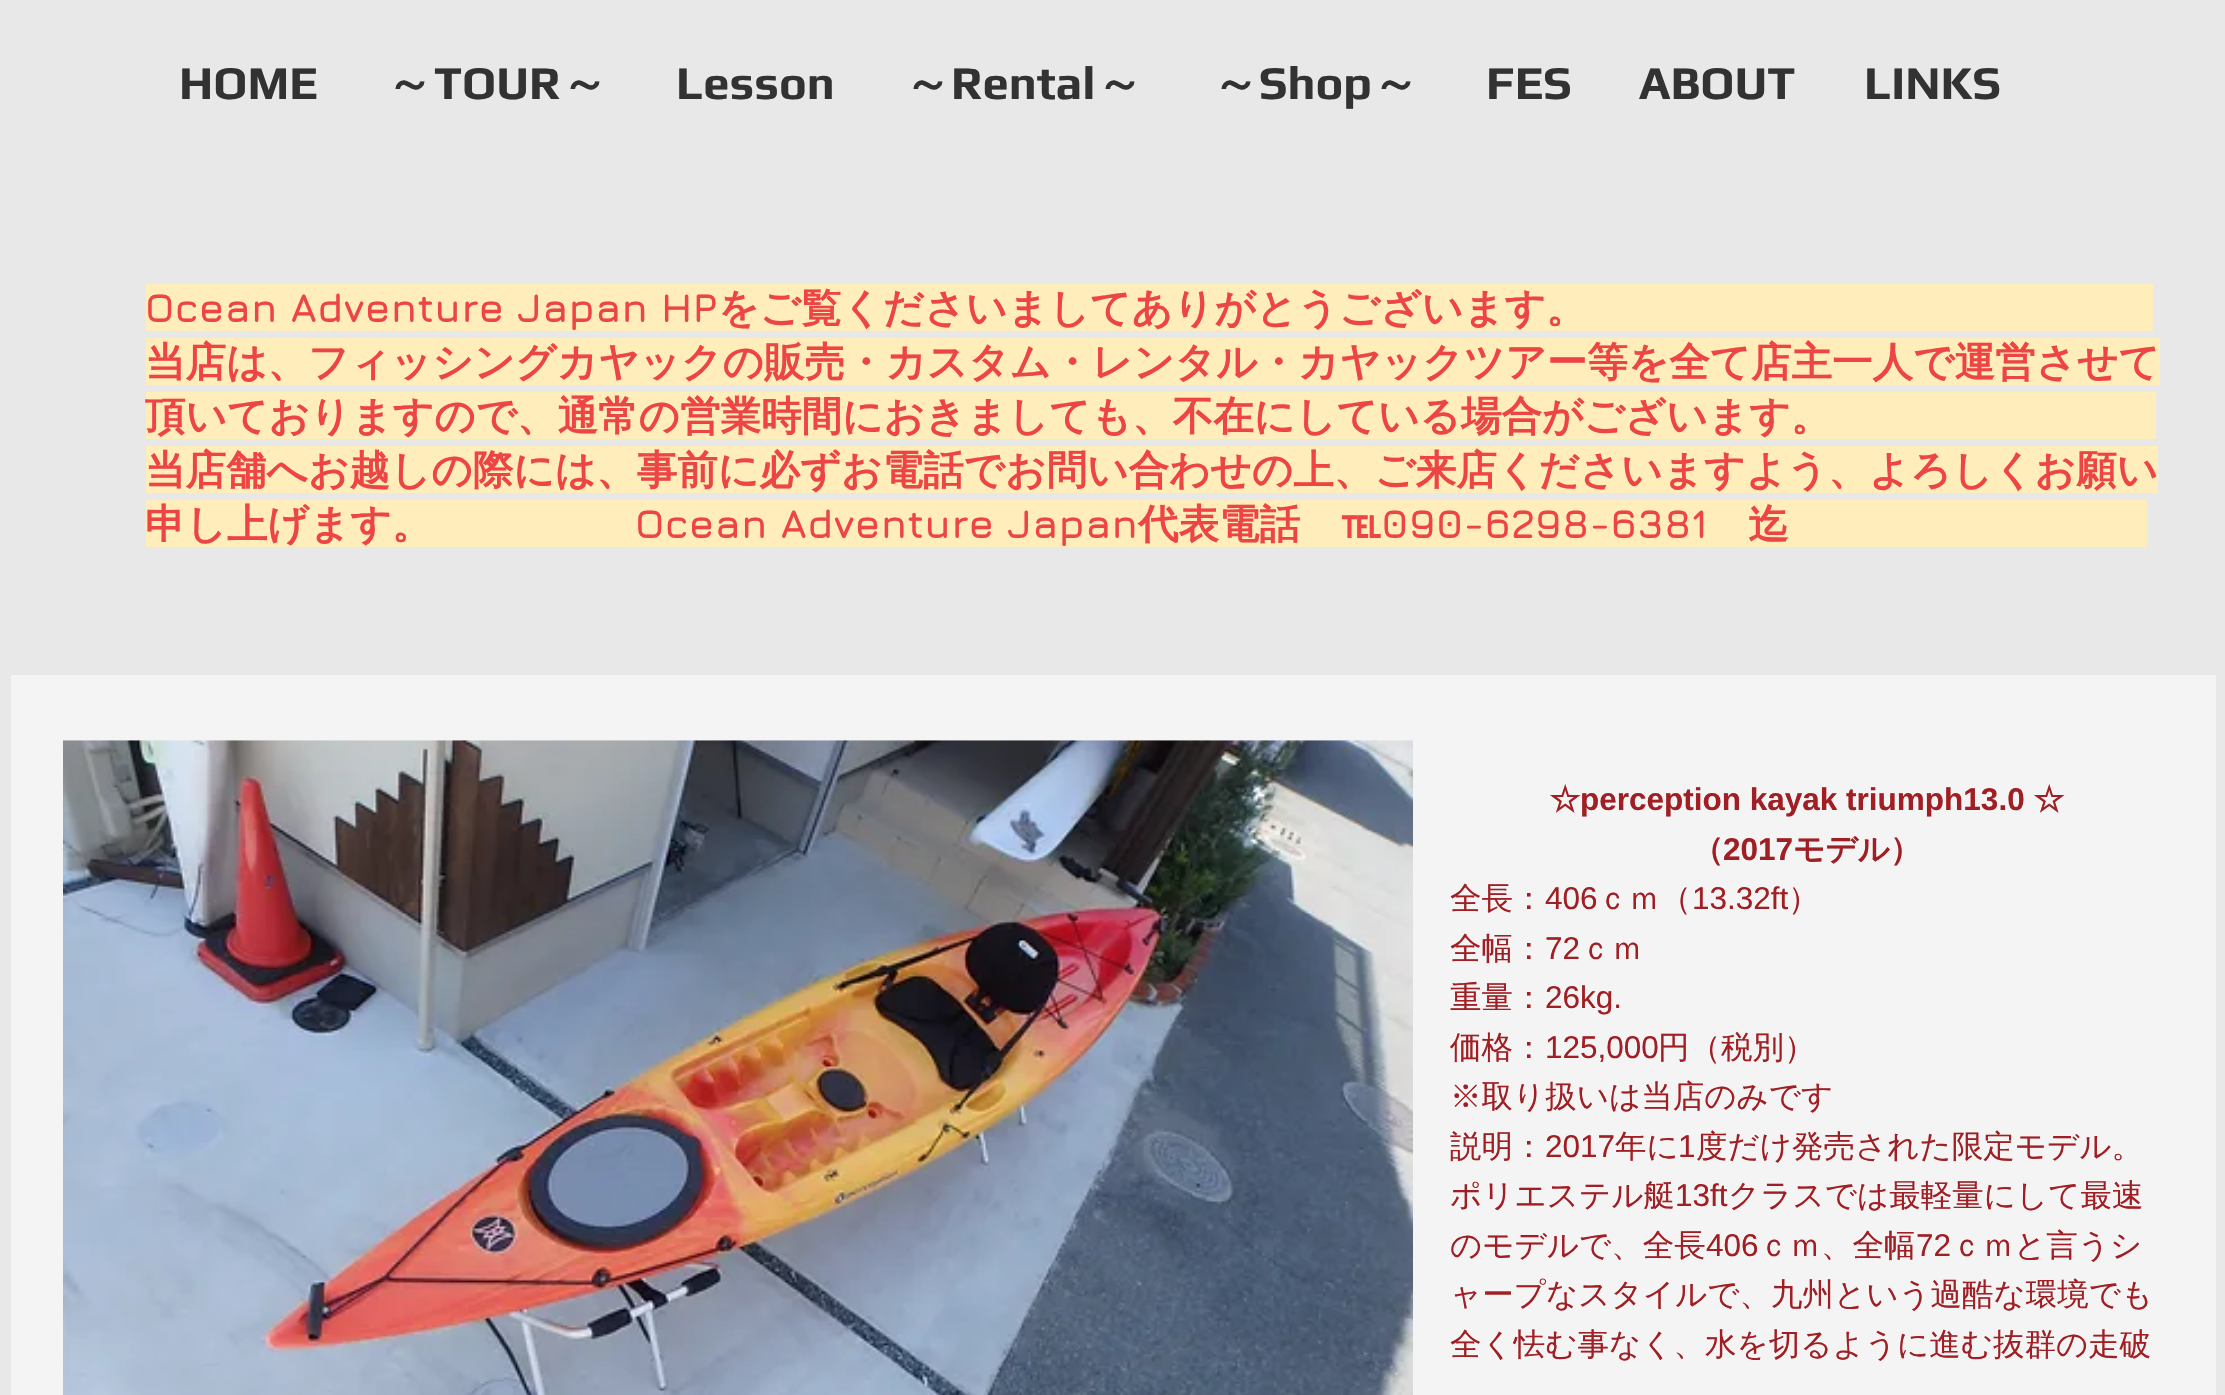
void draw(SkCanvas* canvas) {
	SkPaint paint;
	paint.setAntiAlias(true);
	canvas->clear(0xffe8e8e8);
	SkFont f1(fontMgr->matchFamilyStyle("Play", SkFontStyle::Bold()), 47);
	f1.setSubpixel(true);
	paint.setColor(0xff323232);
	canvas->drawString("HOME", 179, 99, f1, paint);
	SkFont f2(fontMgr->matchFamilyStyle("WenQuanYi Zen Hei", SkFontStyle::Bold()), 47);
	f2.setSubpixel(true);
	canvas->drawString("～", 386, 99, f2, paint);
	canvas->drawString("TOUR", 434, 99, f1, paint);
	canvas->drawString("～", 561, 99, f2, paint);
	canvas->drawString("Lesson", 676, 99, f1, paint);
	canvas->drawString("～", 904, 99, f2, paint);
	canvas->drawString("Rental", 951, 99, f1, paint);
	canvas->drawString("～", 1096, 99, f2, paint);
	canvas->drawString("～", 1212, 99, f2, paint);
	canvas->drawString("Shop", 1259, 99, f1, paint);
	canvas->drawString("～", 1372, 99, f2, paint);
	canvas->drawString("FES", 1486, 99, f1, paint);
	canvas->drawString("ABOUT", 1639, 99, f1, paint);
	canvas->drawString("LINKS", 1864, 99, f1, paint);
	paint.setColor(0xffffeebc);
	canvas->drawRect(SkRect::MakeXYWH(146, 284, 2007, 47), paint);
	SkFont f3(fontMgr->matchFamilyStyle("Jura", SkFontStyle::Bold()), 40.5);
	f3.setSubpixel(true);
	paint.setColor(0xffed4545);
	canvas->drawString("Ocean Adventure Japan HP", 145, 322, f3, paint);
	SkFont f4(fontMgr->matchFamilyStyle("WenQuanYi Zen Hei", SkFontStyle::Bold()), 40.5);
	f4.setSubpixel(true);
	canvas->drawString("をご覧くださいましてありがとうございます。", 718, 322, f4, paint);
	paint.setColor(0xffffeebc);
	canvas->drawRect(SkRect::MakeXYWH(146, 338, 2014, 47), paint);
	paint.setColor(0xffed4545);
	canvas->drawString("当店は、フィッシングカヤックの販売・カスタム・レンタル・カヤックツアー等を全て店主一人で運営させて", 145, 376, f4, paint);
	paint.setColor(0xffffeebc);
	canvas->drawRect(SkRect::MakeXYWH(146, 392, 2010, 47), paint);
	paint.setColor(0xffed4545);
	canvas->drawString("頂いておりますので、通常の営業時間におきましても、不在にしている場合がございます。", 145, 430, f4, paint);
	paint.setColor(0xffffeebc);
	canvas->drawRect(SkRect::MakeXYWH(146, 446, 2012, 47), paint);
	paint.setColor(0xffed4545);
	canvas->drawString("当店舗へお越しの際には、事前に必ずお電話でお問い合わせの上、ご来店くださいますよう、よろしくお願い", 145, 484, f4, paint);
	paint.setColor(0xffffeebc);
	canvas->drawRect(SkRect::MakeXYWH(146, 500, 2001, 47), paint);
	paint.setColor(0xffed4545);
	canvas->drawString("申し上げます。", 145, 538, f4, paint);
	canvas->drawString("Ocean Adventure Japan", 635, 538, f3, paint);
	canvas->drawString("代表電話　℡", 1138, 538, f4, paint);
	canvas->drawString("090-6298-6381", 1381, 538, f3, paint);
	canvas->drawString("迄", 1748, 538, f4, paint);
	paint.setColor(0xfff4f4f4);
	canvas->drawRect(SkRect::MakeXYWH(11, 675, 2205, 720), paint);
	canvas->drawImageRect(SkImages::DeferredFromEncodedData(SkData::MakeFromFileName("img1.png")), SkRect::MakeXYWH(63, 740, 1350, 655), SkSamplingOptions());
	SkFont f5(fontMgr->matchFamilyStyle("WenQuanYi Zen Hei", SkFontStyle::Bold()), 31.5);
	f5.setSubpixel(true);
	paint.setColor(0xffa01f24);
	canvas->drawString("☆", 1549, 810, f5, paint);
	SkFont f6(fontMgr->matchFamilyStyle("Liberation Sans", SkFontStyle::Bold()), 31.5);
	f6.setSubpixel(true);
	canvas->drawString("perception kayak triumph13.0", 1580, 810, f6, paint);
	canvas->drawString("☆", 2033, 810, f5, paint);
	canvas->drawString("（", 1692, 860, f5, paint);
	canvas->drawString("2017", 1723, 860, f6, paint);
	canvas->drawString("モデル）", 1793, 860, f5, paint);
	SkFont f7(fontMgr->matchFamilyStyle("WenQuanYi Zen Hei", SkFontStyle(500, SkFontStyle::kNormal_Width, SkFontStyle::kUpright_Slant)), 31.5);
	f7.setSubpixel(true);
	canvas->drawString("全長：", 1450, 909, f7, paint);
	SkFont f8(fontMgr->matchFamilyStyle("Liberation Sans", SkFontStyle::Normal()), 31.5);
	f8.setSubpixel(true);
	canvas->drawString("406", 1545, 909, f8, paint);
	canvas->drawString("ｃｍ（", 1597, 909, f7, paint);
	canvas->drawString("13.32ft", 1692, 909, f8, paint);
	canvas->drawString("）", 1788, 909, f7, paint);
	canvas->drawString("全幅：", 1450, 959, f7, paint);
	canvas->drawString("72", 1545, 959, f8, paint);
	canvas->drawString("ｃｍ", 1580, 959, f7, paint);
	canvas->drawString("重量：", 1450, 1008, f7, paint);
	canvas->drawString("26kg.", 1545, 1008, f8, paint);
	canvas->drawString("価格：", 1450, 1058, f7, paint);
	canvas->drawString("125,000", 1545, 1058, f8, paint);
	canvas->drawString("円（税別）", 1658, 1058, f7, paint);
	canvas->drawString("※取り扱いは当店のみです", 1450, 1107, f7, paint);
	canvas->drawString("説明：", 1450, 1157, f7, paint);
	canvas->drawString("2017", 1545, 1157, f8, paint);
	canvas->drawString("年に", 1615, 1157, f7, paint);
	canvas->drawString("1", 1678, 1157, f8, paint);
	canvas->drawString("度だけ発売された限定モデル。", 1696, 1157, f7, paint);
	canvas->drawString("ポリエステル艇", 1450, 1206, f7, paint);
	canvas->drawString("13ft", 1675, 1206, f8, paint);
	canvas->drawString("クラスでは最軽量にして最速", 1728, 1206, f7, paint);
	canvas->drawString("のモデルで、全長", 1450, 1256, f7, paint);
	canvas->drawString("406", 1706, 1256, f8, paint);
	canvas->drawString("ｃｍ、全幅", 1758, 1256, f7, paint);
	canvas->drawString("72", 1916, 1256, f8, paint);
	canvas->drawString("ｃｍと言うシ", 1951, 1256, f7, paint);
	canvas->drawString("ャープなスタイルで、九州という過酷な環境でも", 1450, 1305, f7, paint);
	canvas->drawString("全く怯む事なく、水を切るように進む抜群の走破", 1450, 1355, f7, paint);
}
